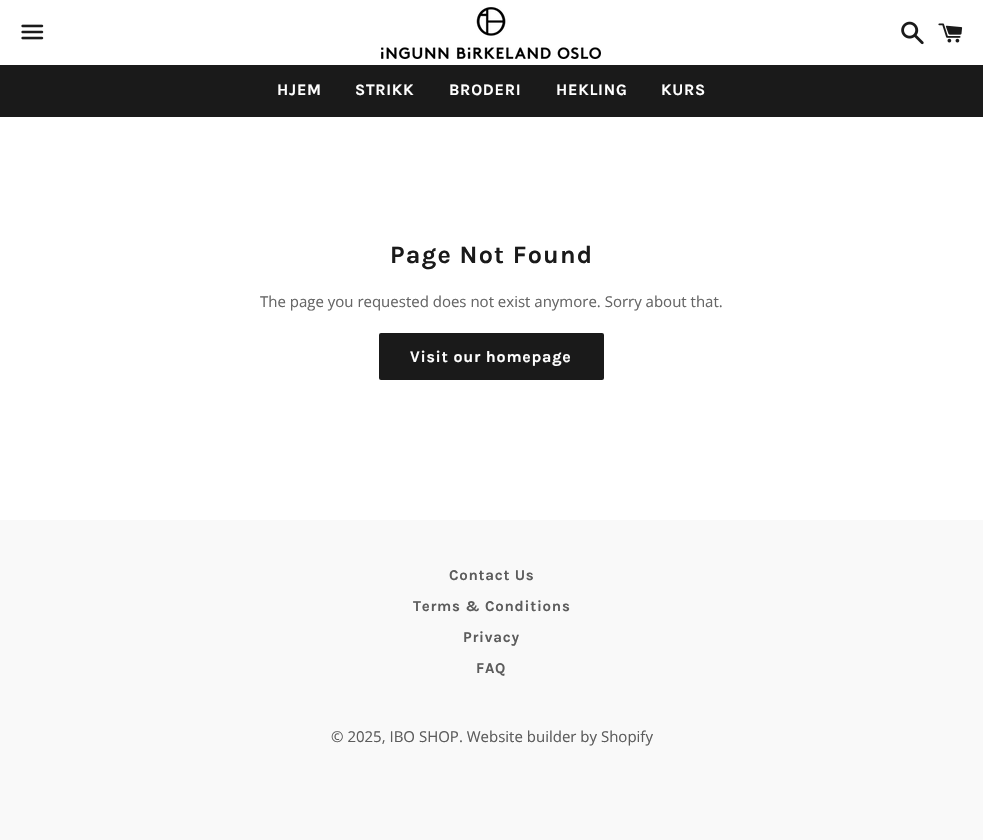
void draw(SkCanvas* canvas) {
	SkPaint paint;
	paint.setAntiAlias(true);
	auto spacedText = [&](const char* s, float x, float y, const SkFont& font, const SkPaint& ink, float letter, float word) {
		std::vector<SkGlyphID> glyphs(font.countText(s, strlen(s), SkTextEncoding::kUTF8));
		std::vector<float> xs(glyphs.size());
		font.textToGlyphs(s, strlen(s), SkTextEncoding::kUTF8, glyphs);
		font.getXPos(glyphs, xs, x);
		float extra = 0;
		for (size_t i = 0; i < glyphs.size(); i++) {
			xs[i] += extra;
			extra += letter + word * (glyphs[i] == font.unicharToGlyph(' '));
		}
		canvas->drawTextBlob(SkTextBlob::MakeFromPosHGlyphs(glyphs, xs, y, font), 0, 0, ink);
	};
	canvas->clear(0xfff9f9f9);
	paint.setColor(0xffffffff);
	canvas->drawRect(SkRect::MakeXYWH(0, 0, 983, 520), paint);
	canvas->drawImageRect(SkImages::DeferredFromEncodedData(SkData::MakeFromFileName("img1.png")), SkRect::MakeXYWH(21, 24, 23, 16), SkSamplingOptions());
	canvas->drawImageRect(SkImages::DeferredFromEncodedData(SkData::MakeFromFileName("img2.png")), SkRect::MakeXYWH(381, 7, 220, 52), SkSamplingOptions());
	canvas->drawImageRect(SkImages::DeferredFromEncodedData(SkData::MakeFromFileName("img3.png")), SkRect::MakeXYWH(901, 21, 23, 24), SkSamplingOptions());
	canvas->drawImageRect(SkImages::DeferredFromEncodedData(SkData::MakeFromFileName("img4.png")), SkRect::MakeXYWH(938, 23, 25, 20), SkSamplingOptions());
	paint.setColor(0xff1a1a1a);
	canvas->drawRect(SkRect::MakeXYWH(0, 65, 983, 52), paint);
	SkFont f1(fontMgr->matchFamilyStyle("Karla", SkFontStyle::Bold()), 16);
	f1.setSubpixel(true);
	paint.setColor(0xffffffff);
	spacedText("HJEM", 277, 95, f1, paint, 0.75, 0);
	spacedText("STRIKK", 355, 95, f1, paint, 0.75, 0);
	spacedText("BRODERI", 449, 95, f1, paint, 0.75, 0);
	spacedText("HEKLING", 556, 95, f1, paint, 0.75, 0);
	spacedText("KURS", 661, 95, f1, paint, 0.75, 0);
	SkFont f2(fontMgr->matchFamilyStyle("Karla", SkFontStyle::Bold()), 25);
	f2.setSubpixel(true);
	paint.setColor(0xff1a1a1a);
	spacedText("Page Not Found", 390, 263, f2, paint, 1.25, 0);
	SkFont f3(fontMgr->matchFamilyStyle("Open Sans", SkFontStyle::Normal()), 15);
	f3.setSubpixel(true);
	paint.setColor(0xff666666);
	canvas->drawString("The page you requested does not exist anymore. Sorry about that.", 260, 307, f3, paint);
	paint.setColor(0xff1a1a1a);
	canvas->drawRoundRect(SkRect::MakeXYWH(379, 333, 225, 47), 2, 2, paint);
	paint.setColor(0xffffffff);
	spacedText("Visit our homepage", 410, 362, f1, paint, 0.75, 0);
	SkFont f4(fontMgr->matchFamilyStyle("Karla", SkFontStyle::Bold()), 15);
	f4.setSubpixel(true);
	paint.setColor(0xff5c5c5c);
	spacedText("Contact Us", 449, 580, f4, paint, 0.75, 0);
	spacedText("Terms & Conditions", 413, 611, f4, paint, 0.75, 0);
	spacedText("Privacy", 463, 642, f4, paint, 0.75, 0);
	spacedText("FAQ", 476, 673, f4, paint, 0.75, 0);
	canvas->drawString("© 2025, IBO SHOP. Website builder by Shopify", 331, 742, f3, paint);
}
